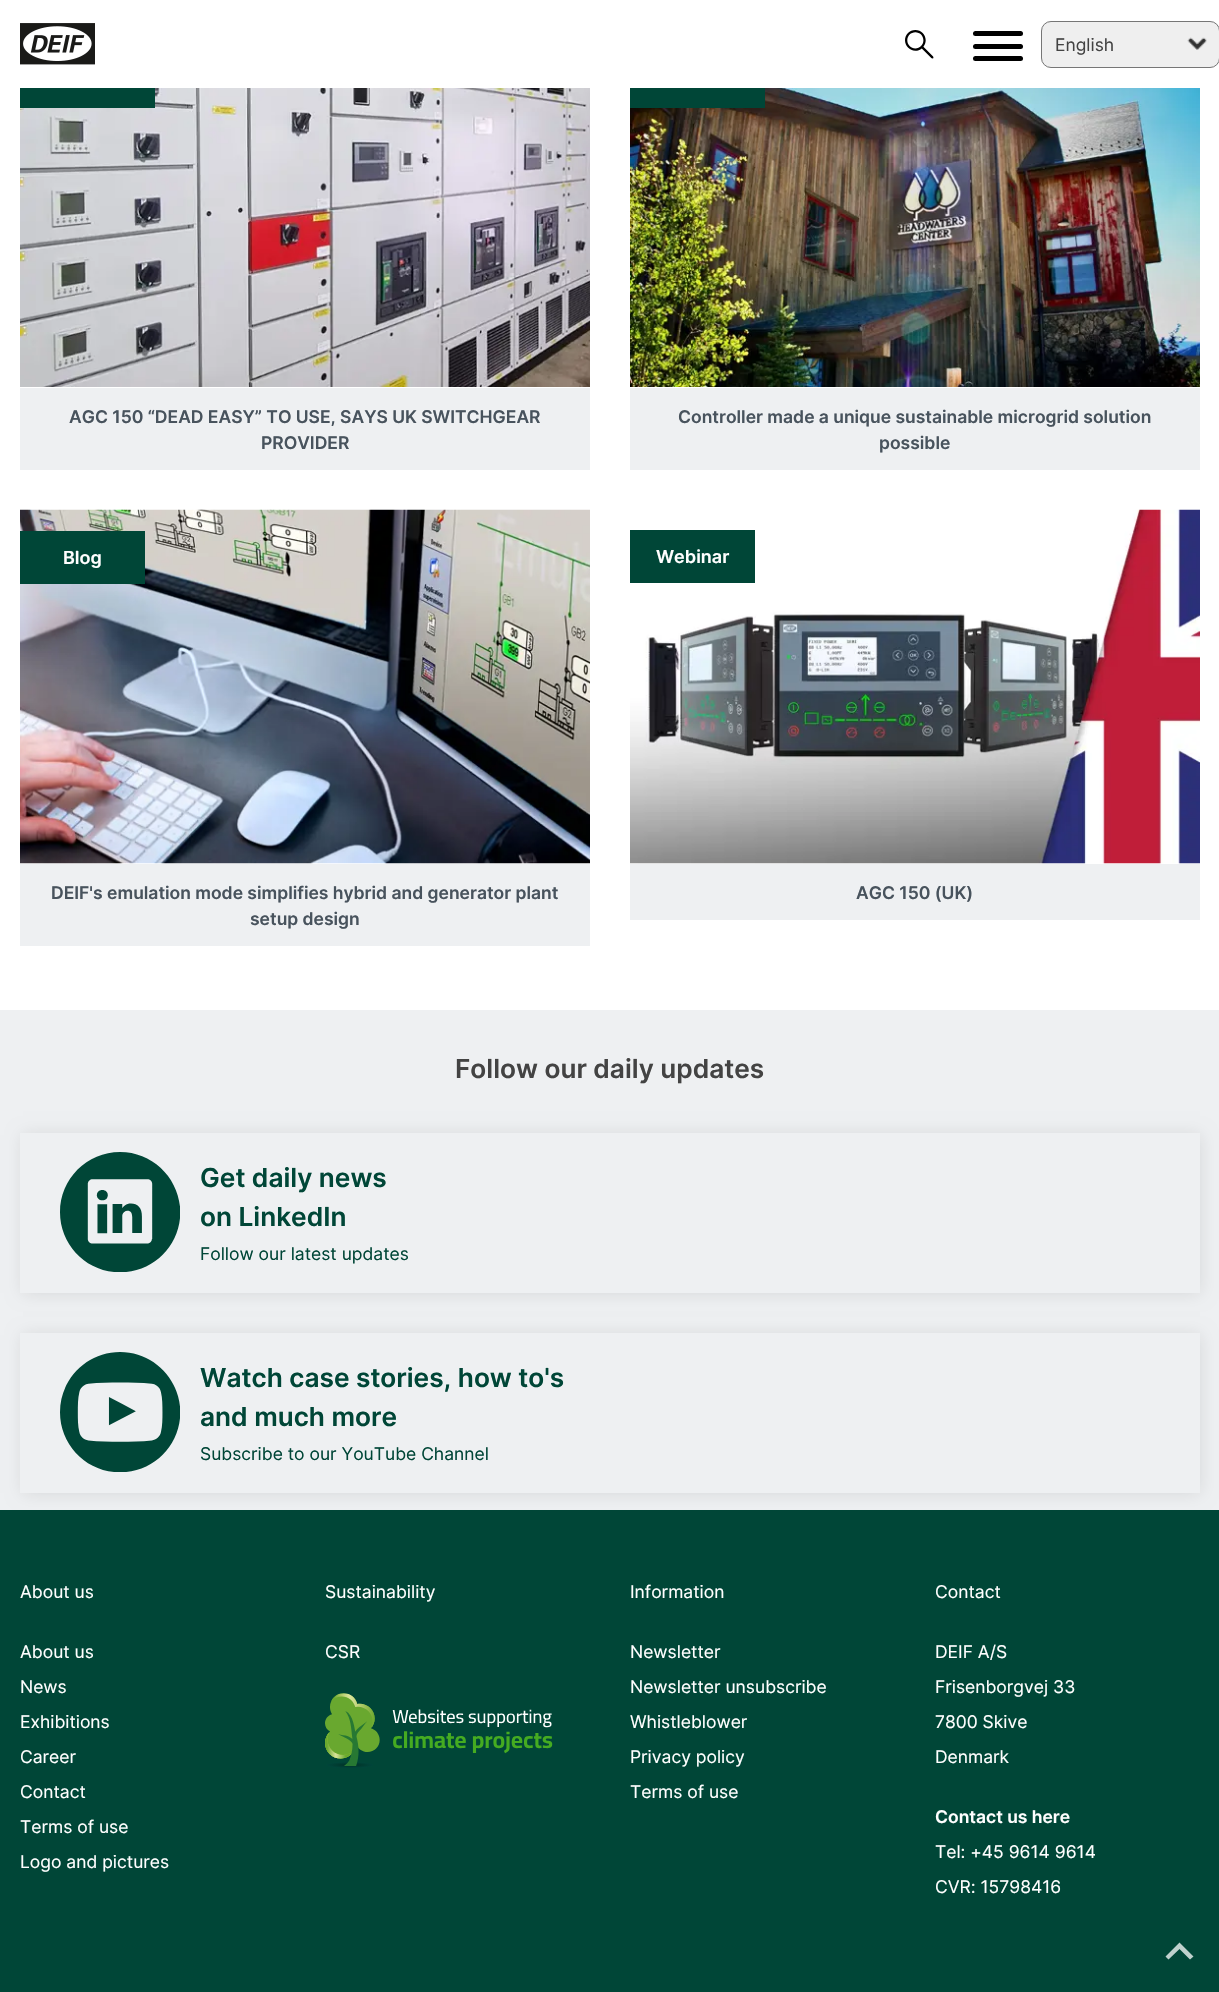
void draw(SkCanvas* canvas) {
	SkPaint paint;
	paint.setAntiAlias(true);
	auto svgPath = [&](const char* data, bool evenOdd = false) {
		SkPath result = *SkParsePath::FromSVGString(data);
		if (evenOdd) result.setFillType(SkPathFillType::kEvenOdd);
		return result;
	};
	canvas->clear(0xffffffff);
	canvas->drawImageRect(SkImages::DeferredFromEncodedData(SkData::MakeFromFileName("img1.png")), SkRect::MakeXYWH(20, 23, 75, 42), SkSamplingOptions());
	canvas->drawImageRect(SkImages::DeferredFromEncodedData(SkData::MakeFromFileName("img2.png")), SkRect::MakeXYWH(905, 30, 29, 29), SkSamplingOptions());
	paint.setColor(0xff000000);
	canvas->drawRoundRect(SkRect::MakeXYWH(973, 31, 50, 5), 2.5, 2.5, paint);
	canvas->drawRoundRect(SkRect::MakeXYWH(973, 44, 50, 5), 2.5, 2.5, paint);
	canvas->drawRoundRect(SkRect::MakeXYWH(973, 56, 50, 5), 2.5, 2.5, paint);
	paint.setColor(0xffefefef);
	canvas->drawRoundRect(SkRect::MakeXYWH(1041, 21, 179, 47), 10, 10, paint);
	canvas->drawImageRect(SkImages::DeferredFromEncodedData(SkData::MakeFromFileName("img3.png")), SkRect::MakeXYWH(1187, 37, 20, 13), SkSamplingOptions());
	paint.setStroke(true);
	paint.setStrokeWidth(1);
	paint.setColor(0xff767676);
	canvas->drawRoundRect(SkRect::MakeXYWH(1041.5, 21.5, 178, 46), 9.5, 9.5, paint);
	SkFont f1(fontMgr->matchFamilyStyle("Inter", SkFontStyle::Normal()), 17.5);
	f1.setSubpixel(true);
	paint.setStroke(false);
	paint.setColor(0xff434343);
	canvas->drawString("English", 1055, 51, f1, paint);
	canvas->drawImageRect(SkImages::DeferredFromEncodedData(SkData::MakeFromFileName("img4.png")), SkRect::MakeXYWH(20, 88, 570, 299), SkSamplingOptions());
	paint.setColor(0xff004637);
	canvas->drawRect(SkRect::MakeXYWH(20, 88, 135, 20), paint);
	paint.setColor(0xffeef0f2);
	canvas->drawRect(SkRect::MakeXYWH(20, 388, 570, 82), paint);
	SkFont f2(fontMgr->matchFamilyStyle("Inter", SkFontStyle(600, SkFontStyle::kNormal_Width, SkFontStyle::kUpright_Slant)), 17.5);
	f2.setSubpixel(true);
	paint.setColor(0xff48535d);
	canvas->drawString("AGC 150 “DEAD EASY” TO USE, SAYS UK SWITCHGEAR", 69, 423, f2, paint);
	canvas->drawString("PROVIDER", 261, 449, f2, paint);
	canvas->drawImageRect(SkImages::DeferredFromEncodedData(SkData::MakeFromFileName("img5.png")), SkRect::MakeXYWH(630, 88, 570, 299), SkSamplingOptions());
	paint.setColor(0xff004637);
	canvas->drawRect(SkRect::MakeXYWH(630, 88, 135, 20), paint);
	paint.setColor(0xffeef0f2);
	canvas->drawRect(SkRect::MakeXYWH(630, 388, 570, 82), paint);
	paint.setColor(0xff48535d);
	canvas->drawString("Controller made a unique sustainable microgrid solution", 678, 423, f2, paint);
	canvas->drawString("possible", 879, 449, f2, paint);
	canvas->drawImageRect(SkImages::DeferredFromEncodedData(SkData::MakeFromFileName("img6.png")), SkRect::MakeXYWH(20, 509, 570, 355), SkSamplingOptions());
	paint.setColor(0xff004637);
	canvas->drawRect(SkRect::MakeXYWH(20, 531, 125, 53), paint);
	SkFont f3(fontMgr->matchFamilyStyle("Inter", SkFontStyle(600, SkFontStyle::kNormal_Width, SkFontStyle::kUpright_Slant)), 18);
	f3.setSubpixel(true);
	paint.setColor(0xffffffff);
	canvas->drawString("Blog", 63, 564, f3, paint);
	paint.setColor(0xffeef0f2);
	canvas->drawRect(SkRect::MakeXYWH(20, 864, 570, 82), paint);
	paint.setColor(0xff48535d);
	canvas->drawString("DEIF's emulation mode simplifies hybrid and generator plant", 51, 899, f2, paint);
	canvas->drawString("setup design", 250, 925, f2, paint);
	canvas->drawImageRect(SkImages::DeferredFromEncodedData(SkData::MakeFromFileName("img7.png")), SkRect::MakeXYWH(630, 509, 570, 355), SkSamplingOptions());
	paint.setColor(0xff004637);
	canvas->drawRect(SkRect::MakeXYWH(630, 530, 125, 53), paint);
	paint.setColor(0xffffffff);
	canvas->drawString("Webinar", 656, 563, f3, paint);
	paint.setColor(0xffeef0f2);
	canvas->drawRect(SkRect::MakeXYWH(630, 864, 570, 56), paint);
	paint.setColor(0xff48535d);
	canvas->drawString("AGC 150 (UK)", 856, 899, f2, paint);
	paint.setColor(0xffeef0f2);
	canvas->drawRect(SkRect::MakeXYWH(0, 1010, 1219, 500), paint);
	SkFont f4(fontMgr->matchFamilyStyle("Inter", SkFontStyle(600, SkFontStyle::kNormal_Width, SkFontStyle::kUpright_Slant)), 26.25);
	f4.setSubpixel(true);
	paint.setColor(0xff434343);
	canvas->drawString("Follow our daily updates", 455, 1078, f4, paint);
	canvas->save();
	canvas->clipPath(svgPath("M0 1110H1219V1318H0ZM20 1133H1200V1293H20Z", true), true);
	paint.setColor(0x1c000000);
	paint.setMaskFilter(SkMaskFilter::MakeBlur(kNormal_SkBlurStyle, 8));
	canvas->drawRect(SkRect::MakeXYWH(23, 1135, 1177, 158), paint);
	paint.setMaskFilter(nullptr);
	canvas->restore();
	canvas->drawImageRect(SkImages::DeferredFromEncodedData(SkData::MakeFromFileName("img8.png")), SkRect::MakeXYWH(60, 1152, 120, 120), SkSamplingOptions());
	paint.setColor(0xff004637);
	canvas->drawString("Get daily news", 200, 1187, f4, paint);
	canvas->drawString("on LinkedIn", 200, 1226, f4, paint);
	canvas->drawString("Follow our latest updates", 200, 1260, f1, paint);
	canvas->drawRect(SkRect::MakeXYWH(0, 1510, 1219, 482), paint);
	canvas->save();
	canvas->clipPath(svgPath("M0 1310H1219V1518H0ZM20 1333H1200V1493H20Z", true), true);
	paint.setColor(0x1c000000);
	paint.setMaskFilter(SkMaskFilter::MakeBlur(kNormal_SkBlurStyle, 8));
	canvas->drawRect(SkRect::MakeXYWH(23, 1335, 1177, 158), paint);
	paint.setMaskFilter(nullptr);
	canvas->restore();
	canvas->drawImageRect(SkImages::DeferredFromEncodedData(SkData::MakeFromFileName("img9.png")), SkRect::MakeXYWH(60, 1352, 120, 120), SkSamplingOptions());
	paint.setColor(0xff004637);
	canvas->drawString("Watch case stories, how to's", 200, 1387, f4, paint);
	canvas->drawString("and much more", 200, 1426, f4, paint);
	canvas->drawString("Subscribe to our YouTube Channel", 200, 1460, f1, paint);
	paint.setColor(0xffffffff);
	canvas->drawString("About us", 20, 1598, f1, paint);
	canvas->drawString("About us", 20, 1658, f1, paint);
	canvas->drawString("News", 20, 1693, f1, paint);
	canvas->drawString("Exhibitions", 20, 1728, f1, paint);
	canvas->drawString("Career", 20, 1763, f1, paint);
	canvas->drawString("Contact", 20, 1798, f1, paint);
	canvas->drawString("Terms of use", 20, 1833, f1, paint);
	canvas->drawString("Logo and pictures", 20, 1868, f1, paint);
	canvas->drawString("Sustainability", 325, 1598, f1, paint);
	canvas->drawString("CSR", 325, 1658, f1, paint);
	canvas->drawImageRect(SkImages::DeferredFromEncodedData(SkData::MakeFromFileName("img10.png")), SkRect::MakeXYWH(325, 1693, 228, 75), SkSamplingOptions());
	canvas->drawString("Information", 630, 1598, f1, paint);
	canvas->drawString("Newsletter", 630, 1658, f1, paint);
	canvas->drawString("Newsletter unsubscribe", 630, 1693, f1, paint);
	canvas->drawString("Whistleblower", 630, 1728, f1, paint);
	canvas->drawString("Privacy policy", 630, 1763, f1, paint);
	canvas->drawString("Terms of use", 630, 1798, f1, paint);
	canvas->drawString("Contact", 935, 1598, f1, paint);
	canvas->drawString("DEIF A/S", 935, 1658, f1, paint);
	canvas->drawString("Frisenborgvej 33", 935, 1693, f1, paint);
	canvas->drawString("7800 Skive", 935, 1728, f1, paint);
	canvas->drawString("Denmark", 935, 1763, f1, paint);
	canvas->drawString("Contact us here", 935, 1823, f2, paint);
	canvas->drawString("Tel: +45 9614 9614", 935, 1858, f1, paint);
	canvas->drawString("CVR: 15798416", 935, 1893, f1, paint);
	paint.setColor(0xffbfd1cd);
	canvas->drawPath(svgPath("M1168.5 1959.5L1179.5 1949L1190 1959.5L1193.5 1956.5L1179.5 1942.5L1165.5 1956.5Z"), paint);
}
